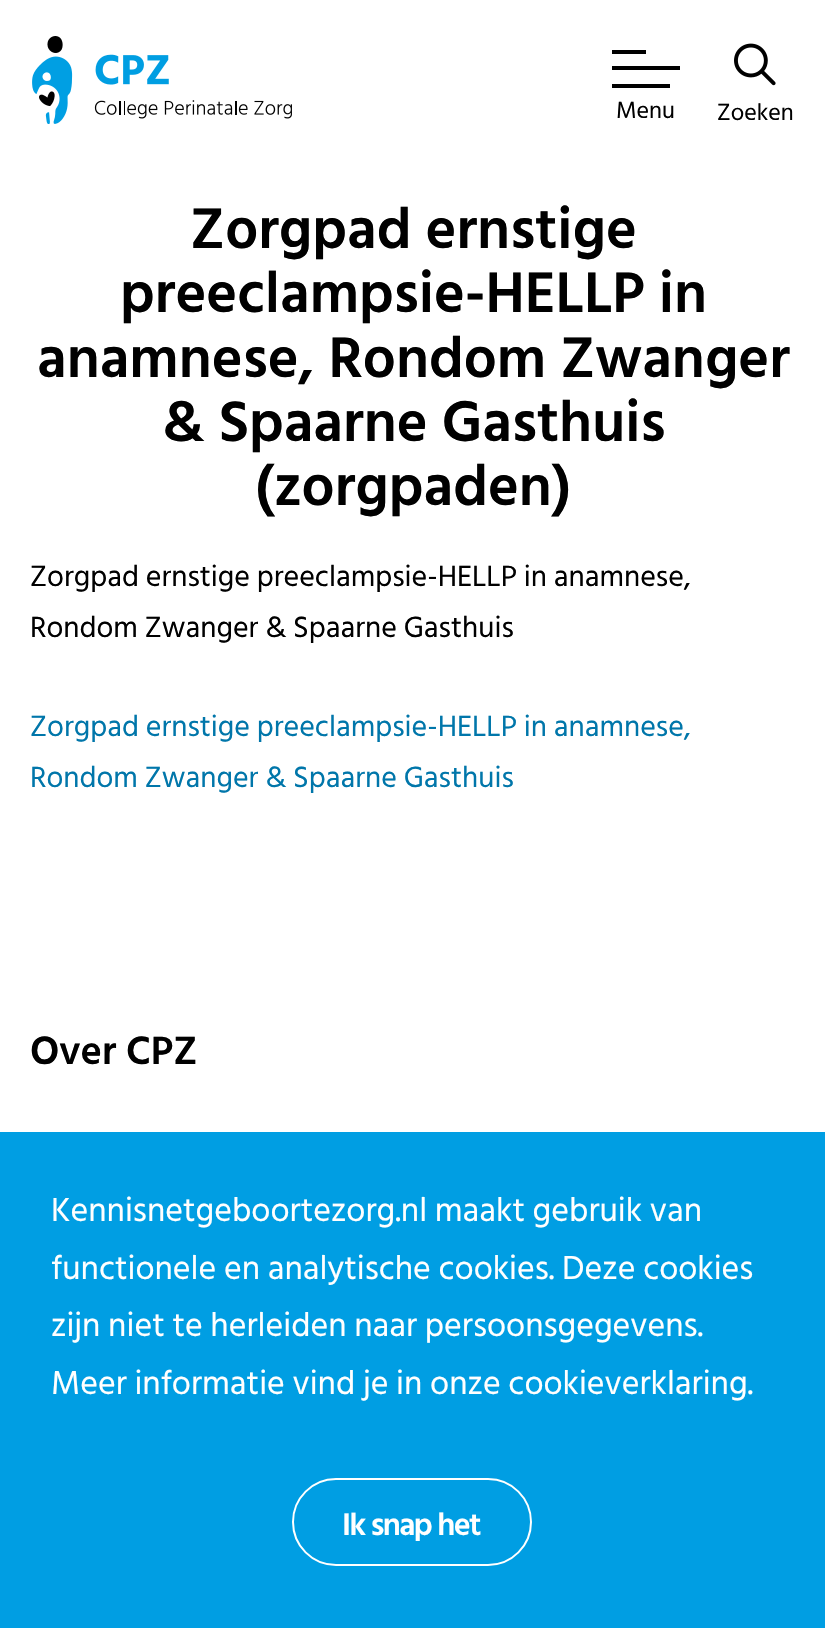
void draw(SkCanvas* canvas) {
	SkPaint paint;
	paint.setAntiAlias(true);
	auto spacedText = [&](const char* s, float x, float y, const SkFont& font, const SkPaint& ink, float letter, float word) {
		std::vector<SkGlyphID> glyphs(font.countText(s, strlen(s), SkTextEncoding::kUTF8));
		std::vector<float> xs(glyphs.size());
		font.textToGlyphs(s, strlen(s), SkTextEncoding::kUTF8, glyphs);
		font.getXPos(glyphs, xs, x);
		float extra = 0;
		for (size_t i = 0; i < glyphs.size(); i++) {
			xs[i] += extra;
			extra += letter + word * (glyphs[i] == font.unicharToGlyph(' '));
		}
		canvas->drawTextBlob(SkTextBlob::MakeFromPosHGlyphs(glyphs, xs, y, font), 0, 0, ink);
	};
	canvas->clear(0xffffffff);
	canvas->drawImageRect(SkImages::DeferredFromEncodedData(SkData::MakeFromFileName("img1.png")), SkRect::MakeXYWH(32, 36, 260, 88), SkSamplingOptions());
	paint.setColor(0xff000000);
	canvas->drawRect(SkRect::MakeXYWH(612, 50, 34, 4), paint);
	canvas->drawRect(SkRect::MakeXYWH(612, 66, 68, 4), paint);
	canvas->drawRect(SkRect::MakeXYWH(612, 84, 58, 4), paint);
	SkFont f1(fontMgr->matchFamilyStyle("Hind Siliguri", SkFontStyle::Normal()), 24);
	f1.setSubpixel(true);
	canvas->drawString("Menu", 616, 118, f1, paint);
	canvas->drawImageRect(SkImages::DeferredFromEncodedData(SkData::MakeFromFileName("img2.png")), SkRect::MakeXYWH(734, 43, 42, 43), SkSamplingOptions());
	canvas->drawString("Zoeken", 717, 120, f1, paint);
	SkFont f2(fontMgr->matchFamilyStyle("Hind Siliguri", SkFontStyle(600, SkFontStyle::kNormal_Width, SkFontStyle::kUpright_Slant)), 58.5);
	f2.setSubpixel(true);
	canvas->drawString("Zorgpad ernstige", 190, 248, f2, paint);
	canvas->drawString("preeclampsie-HELLP in", 120, 312, f2, paint);
	canvas->drawString("anamnese, Rondom Zwanger", 37, 377, f2, paint);
	canvas->drawString("& Spaarne Gasthuis", 162, 441, f2, paint);
	canvas->drawString("(zorgpaden)", 255, 505, f2, paint);
	SkFont f3(fontMgr->matchFamilyStyle("Hind Siliguri", SkFontStyle::Normal()), 30);
	f3.setSubpixel(true);
	canvas->drawString("Zorgpad ernstige preeclampsie-HELLP in anamnese,", 30, 586, f3, paint);
	canvas->drawString("Rondom Zwanger & Spaarne Gasthuis", 30, 637, f3, paint);
	paint.setColor(0xff0076aa);
	canvas->drawString("Zorgpad ernstige preeclampsie-HELLP in anamnese,", 30, 736, f3, paint);
	canvas->drawString("Rondom Zwanger & Spaarne Gasthuis", 30, 787, f3, paint);
	SkFont f4(fontMgr->matchFamilyStyle("Hind Siliguri", SkFontStyle(600, SkFontStyle::kNormal_Width, SkFontStyle::kUpright_Slant)), 40.5);
	f4.setSubpixel(true);
	paint.setColor(0xff000000);
	canvas->drawString("Over CPZ", 30, 1064, f4, paint);
	paint.setColor(0xff009ee3);
	canvas->drawRect(SkRect::MakeXYWH(0, 1132, 825, 496), paint);
	SkFont f5(fontMgr->matchFamilyStyle("Hind Siliguri", SkFontStyle::Normal()), 34);
	f5.setSubpixel(true);
	paint.setColor(0xffffffff);
	canvas->drawString("Kennisnetgeboortezorg.nl maakt gebruik van", 51, 1221, f5, paint);
	canvas->drawString("functionele en analytische cookies. Deze cookies", 51, 1279, f5, paint);
	canvas->drawString("zijn niet te herleiden naar persoonsgegevens.", 51, 1336, f5, paint);
	canvas->drawString("Meer informatie vind je in onze cookieverklaring.", 51, 1394, f5, paint);
	paint.setStroke(true);
	paint.setStrokeWidth(2);
	canvas->drawRoundRect(SkRect::MakeXYWH(293, 1479, 238, 86), 43, 43, paint);
	SkFont f6(fontMgr->matchFamilyStyle("Hind Siliguri", SkFontStyle(600, SkFontStyle::kNormal_Width, SkFontStyle::kUpright_Slant)), 32);
	f6.setSubpixel(true);
	paint.setStroke(false);
	spacedText("Ik snap het", 342, 1535, f6, paint, -1.6, 0);
}
